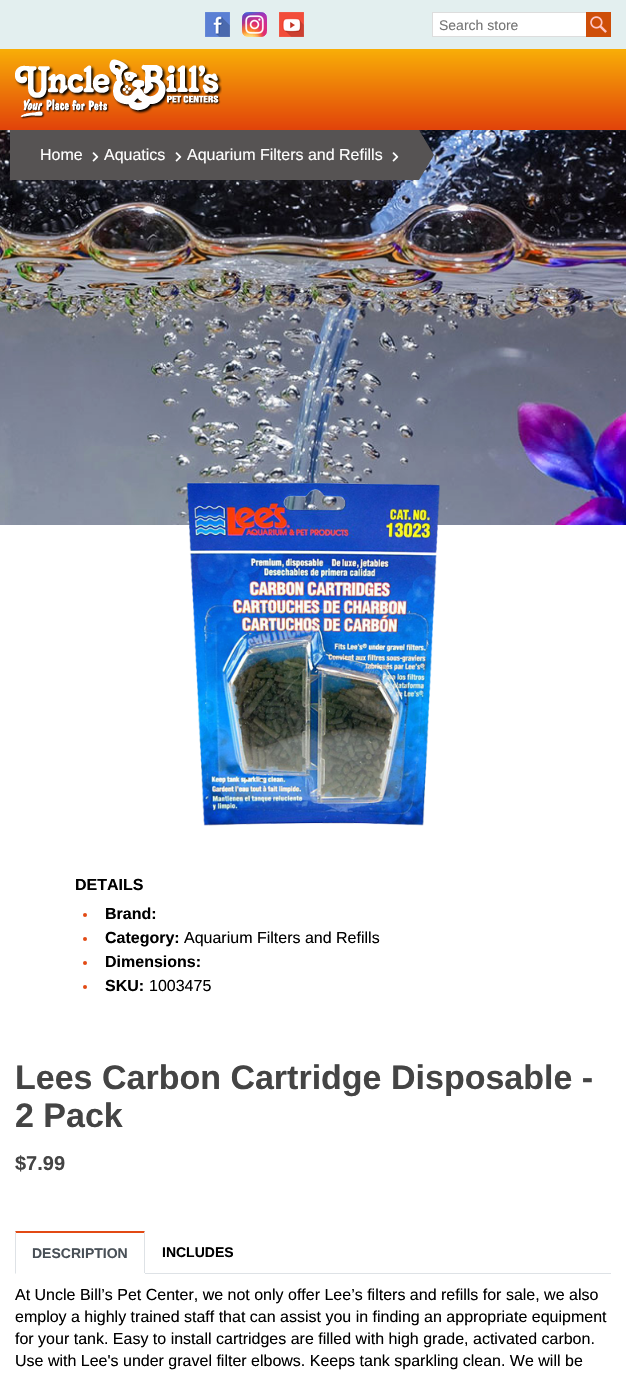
void draw(SkCanvas* canvas) {
	SkPaint paint;
	paint.setAntiAlias(true);
	auto svgPath = [&](const char* data, bool evenOdd = false) {
		SkPath result = *SkParsePath::FromSVGString(data);
		if (evenOdd) result.setFillType(SkPathFillType::kEvenOdd);
		return result;
	};
	canvas->clear(0xffffffff);
	paint.setColor(0xffe3efef);
	canvas->drawRect(SkRect::MakeXYWH(0, 0, 626, 49), paint);
	canvas->drawImageRect(SkImages::DeferredFromEncodedData(SkData::MakeFromFileName("img1.png")), SkRect::MakeXYWH(205, 12, 25, 25), SkSamplingOptions());
	canvas->drawImageRect(SkImages::DeferredFromEncodedData(SkData::MakeFromFileName("img2.png")), SkRect::MakeXYWH(242, 12, 25, 25), SkSamplingOptions());
	canvas->drawImageRect(SkImages::DeferredFromEncodedData(SkData::MakeFromFileName("img3.png")), SkRect::MakeXYWH(279, 12, 25, 25), SkSamplingOptions());
	paint.setColor(0xffffffff);
	canvas->drawRect(SkRect::MakeXYWH(433, 13, 153, 23), paint);
	paint.setStroke(true);
	paint.setStrokeWidth(1);
	paint.setColor(0xffdddddd);
	canvas->drawRect(SkRect::MakeXYWH(432.5, 12.5, 178, 24), paint);
	SkFont f1(fontMgr->matchFamilyStyle("Liberation Sans", SkFontStyle::Normal()), 14);
	f1.setSubpixel(true);
	paint.setStroke(false);
	paint.setColor(0xff757575);
	canvas->drawString("Search store", 439, 30, f1, paint);
	canvas->drawImageRect(SkImages::DeferredFromEncodedData(SkData::MakeFromFileName("img4.png")), SkRect::MakeXYWH(586, 12, 25, 25), SkSamplingOptions());
	{
		const SkColor colors[] = {0xfff8ad07, 0xffe1420a};
		const float stops[] = {0.01, 1};
		const SkPoint ends[] = {{313, 49}, {313, 130}};
		paint.setShader(SkGradientShader::MakeLinear(ends, colors, stops, 2, SkTileMode::kClamp));
		paint.setAlpha(255);
	}
	canvas->drawRect(SkRect::MakeXYWH(0, 49, 626, 81), paint);
	canvas->drawImageRect(SkImages::DeferredFromEncodedData(SkData::MakeFromFileName("img5.png")), SkRect::MakeXYWH(15, 59, 207, 60), SkSamplingOptions());
	canvas->drawImageRect(SkImages::DeferredFromEncodedData(SkData::MakeFromFileName("img6.png")), SkRect::MakeXYWH(0, 130, 626, 395), SkSamplingOptions());
	paint.setShader(nullptr);
	paint.setColor(0xff565353);
	canvas->drawRect(SkRect::MakeXYWH(10, 130, 409, 50), paint);
	SkFont f2(fontMgr->matchFamilyStyle("Liberation Sans", SkFontStyle::Normal()), 16);
	f2.setSubpixel(true);
	paint.setColor(0xffffffff);
	canvas->drawString("Home", 40, 160, f2, paint);
	canvas->drawImageRect(SkImages::DeferredFromEncodedData(SkData::MakeFromFileName("img7.png")), SkRect::MakeXYWH(92, 152, 7, 10), SkSamplingOptions());
	canvas->drawString("Aquatics", 104, 160, f2, paint);
	canvas->drawImageRect(SkImages::DeferredFromEncodedData(SkData::MakeFromFileName("img7.png")), SkRect::MakeXYWH(175, 152, 7, 10), SkSamplingOptions());
	canvas->drawString("Aquarium Filters and Refills", 187, 160, f2, paint);
	canvas->drawImageRect(SkImages::DeferredFromEncodedData(SkData::MakeFromFileName("img7.png")), SkRect::MakeXYWH(392, 152, 7, 10), SkSamplingOptions());
	paint.setColor(0xff565353);
	canvas->drawPath(svgPath("M419 180V130L434 155Z"), paint);
	canvas->drawImageRect(SkImages::DeferredFromEncodedData(SkData::MakeFromFileName("img8.png")), SkRect::MakeXYWH(186, 482, 254, 344), SkSamplingOptions());
	SkFont f3(fontMgr->matchFamilyStyle("Liberation Sans", SkFontStyle::Bold()), 16);
	f3.setSubpixel(true);
	paint.setColor(0xff000000);
	canvas->drawString("DETAILS", 75, 890, f3, paint);
	paint.setColor(0xffe24a14);
	canvas->drawCircle(85, 915, 2, paint);
	paint.setColor(0xff000000);
	canvas->drawString("Brand:", 105, 919, f3, paint);
	paint.setColor(0xffe24a14);
	canvas->drawCircle(85, 939, 2, paint);
	paint.setColor(0xff000000);
	canvas->drawString("Category:", 105, 943, f3, paint);
	canvas->drawString("Aquarium Filters and Refills", 184, 943, f2, paint);
	paint.setColor(0xffe24a14);
	canvas->drawCircle(85, 963, 2, paint);
	paint.setColor(0xff000000);
	canvas->drawString("Dimensions:", 105, 967, f3, paint);
	paint.setColor(0xffe24a14);
	canvas->drawCircle(85, 987, 2, paint);
	paint.setColor(0xff000000);
	canvas->drawString("SKU:", 105, 991, f3, paint);
	canvas->drawString("1003475", 149, 991, f2, paint);
	SkFont f4(fontMgr->matchFamilyStyle("Liberation Sans", SkFontStyle::Bold()), 34);
	f4.setSubpixel(true);
	paint.setColor(0xff444444);
	canvas->drawString("Lees Carbon Cartridge Disposable -", 15, 1089, f4, paint);
	canvas->drawString("2 Pack", 15, 1127, f4, paint);
	SkFont f5(fontMgr->matchFamilyStyle("Liberation Sans", SkFontStyle::Bold()), 20);
	f5.setSubpixel(true);
	canvas->drawString("$7.99", 15, 1170, f5, paint);
	paint.setColor(0xffdee2e6);
	canvas->drawRect(SkRect::MakeXYWH(145, 1273, 466, 1), paint);
	paint.setColor(0xffe24a14);
	canvas->drawPath(svgPath("M15 1231H145L144 1233H16Z"), paint);
	paint.setColor(0xffdee2e6);
	canvas->drawPath(svgPath("M145 1231V1274L144 1273V1233Z"), paint);
	paint.setColor(0xffffffff);
	canvas->drawRect(SkRect::MakeXYWH(144, 1273, 1, 1), paint);
	paint.setColor(0xffdee2e6);
	canvas->drawPath(svgPath("M15 1274V1231L16 1233V1273Z"), paint);
	SkFont f6(fontMgr->matchFamilyStyle("Liberation Sans", SkFontStyle::Bold()), 14);
	f6.setSubpixel(true);
	paint.setColor(0xff495057);
	canvas->drawString("DESCRIPTION", 32, 1258, f6, paint);
	paint.setColor(0xff000000);
	canvas->drawString("INCLUDES", 162, 1257, f6, paint);
	canvas->drawString("At Uncle Bill’s Pet Center, we not only offer Lee’s filters and refills for sale, we also", 15, 1300, f2, paint);
	canvas->drawString("employ a highly trained staff that can assist you in finding an appropriate equipment", 15, 1322, f2, paint);
	canvas->drawString("for your tank. Easy to install cartridges are filled with high grade, activated carbon.", 15, 1344, f2, paint);
	canvas->drawString("Use with Lee's under gravel filter elbows. Keeps tank sparkling clean. We will be", 15, 1366, f2, paint);
}
